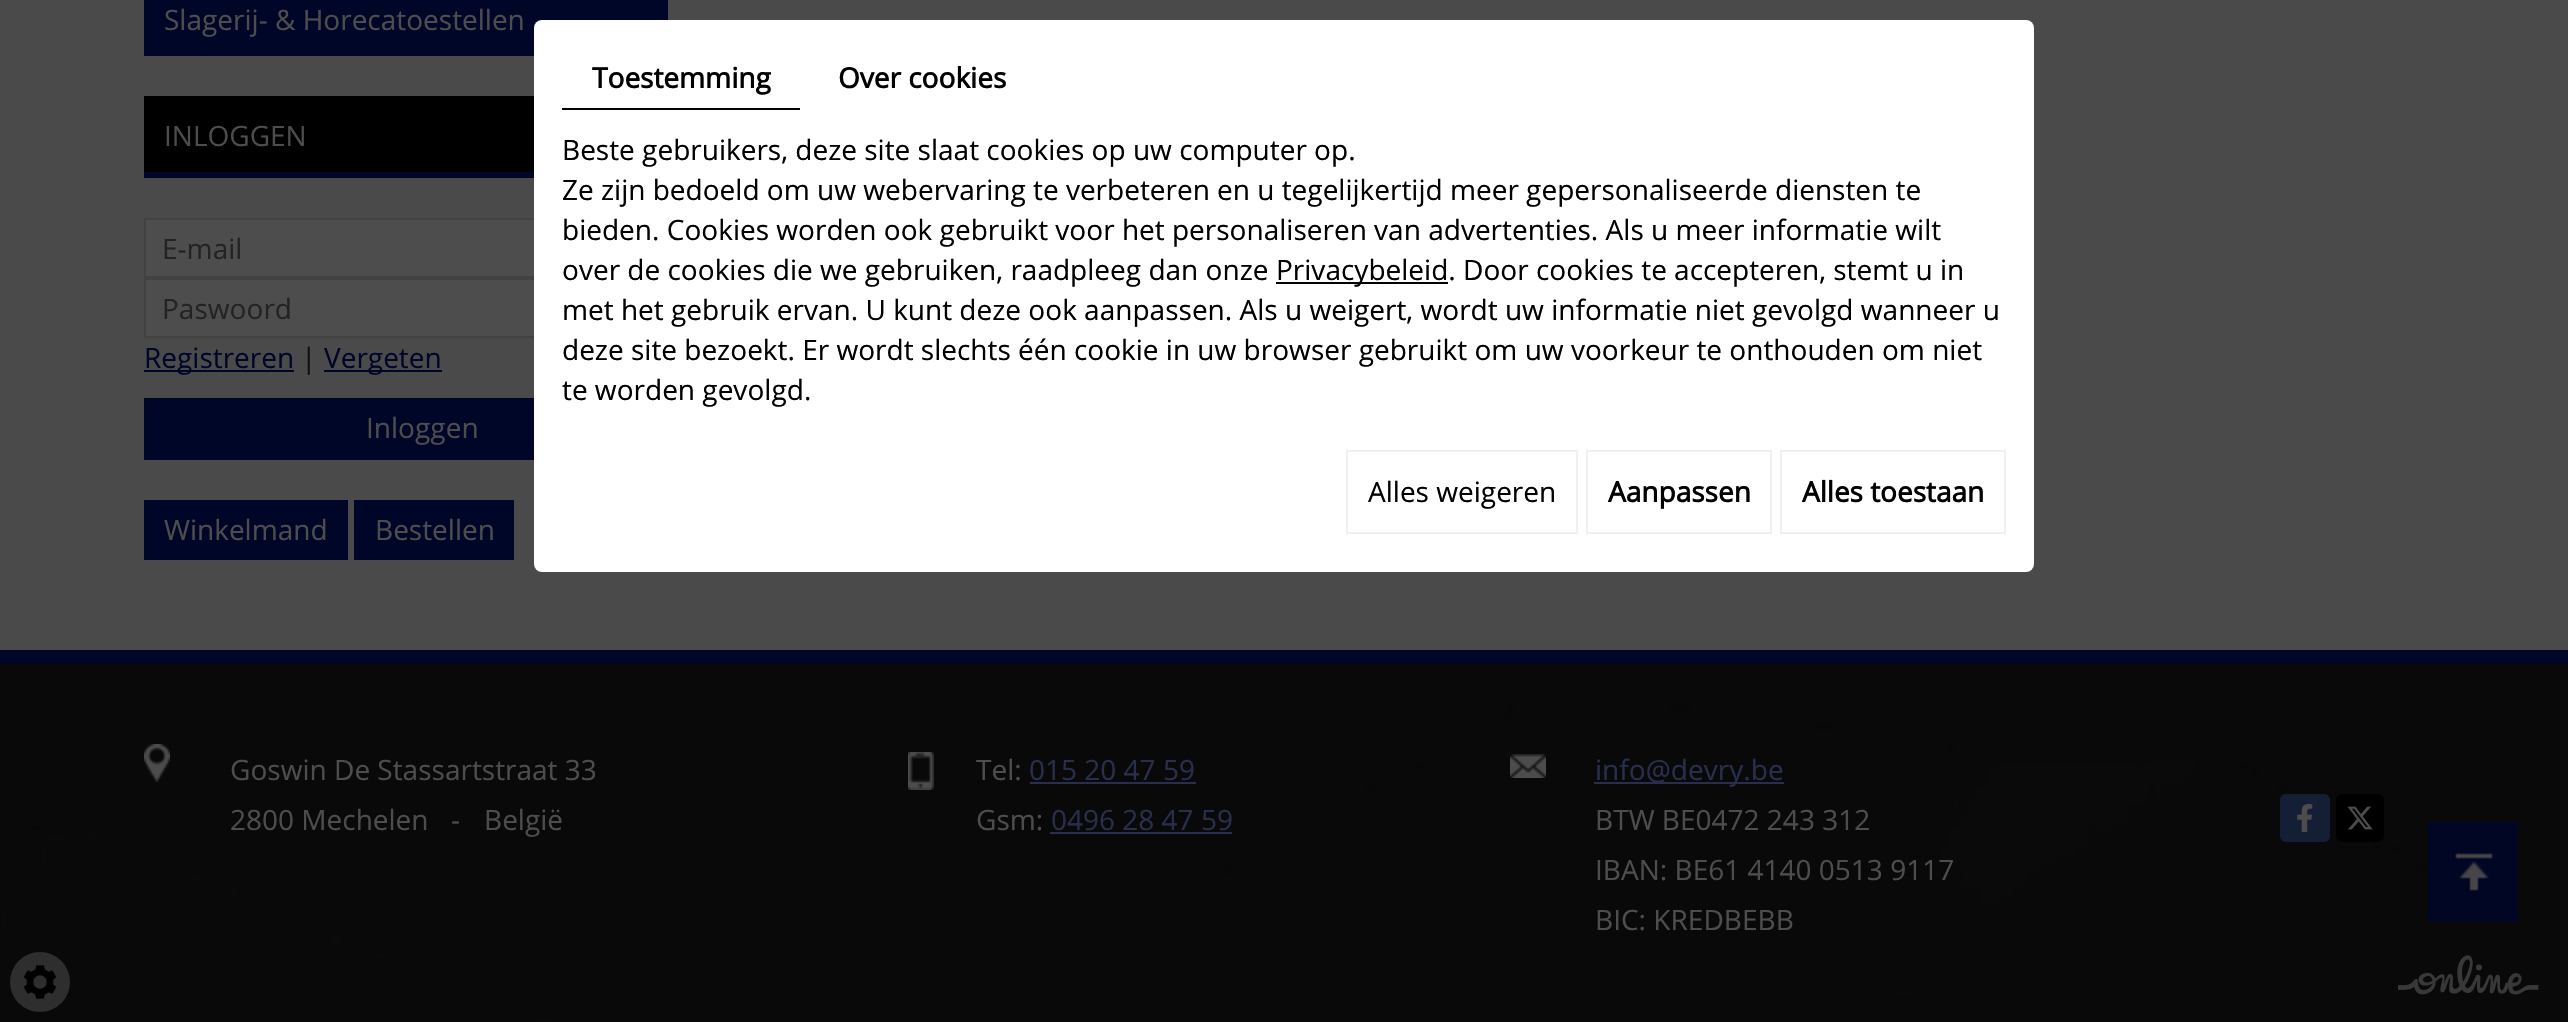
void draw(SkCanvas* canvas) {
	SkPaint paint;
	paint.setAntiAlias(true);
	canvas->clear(0xff4a4a4a);
	paint.setColor(0xff000627);
	canvas->drawRect(SkRect::MakeXYWH(144, 0, 524, 56), paint);
	SkFont f1(fontMgr->matchFamilyStyle("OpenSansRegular", SkFontStyle::Normal()), 28);
	f1.setSubpixel(true);
	paint.setColor(0xff4d4d4d);
	canvas->drawString("Slagerij- & Horecatoestellen", 164, 30, f1, paint);
	paint.setColor(0xff000000);
	canvas->drawRect(SkRect::MakeXYWH(144, 96, 390, 76), paint);
	paint.setColor(0xff000627);
	canvas->drawRect(SkRect::MakeXYWH(144, 172, 390, 6), paint);
	paint.setColor(0xff4d4d4d);
	canvas->drawString("INLOGGEN", 164, 146, f1, paint);
	canvas->drawRect(SkRect::MakeXYWH(146, 220, 388, 56), paint);
	paint.setStroke(true);
	paint.setStrokeWidth(2);
	paint.setColor(0xff424243);
	canvas->drawRect(SkRect::MakeXYWH(145, 219, 522, 58), paint);
	paint.setStroke(false);
	paint.setColor(0xff232323);
	canvas->drawString("E-mail", 162, 259, f1, paint);
	paint.setColor(0xff4d4d4d);
	canvas->drawRect(SkRect::MakeXYWH(146, 280, 388, 56), paint);
	paint.setStroke(true);
	paint.setColor(0xff424243);
	canvas->drawRect(SkRect::MakeXYWH(145, 279, 522, 58), paint);
	paint.setStroke(false);
	paint.setColor(0xff232323);
	canvas->drawString("Paswoord", 162, 319, f1, paint);
	paint.setColor(0xff000627);
	canvas->drawRect(SkRect::MakeXYWH(144, 370, 150, 2), paint);
	canvas->drawString("Registreren", 144, 368, f1, paint);
	paint.setColor(0xff0f0f0f);
	canvas->drawString("|", 301, 368, f1, paint);
	paint.setColor(0xff000627);
	canvas->drawRect(SkRect::MakeXYWH(324, 370, 118, 2), paint);
	canvas->drawString("Vergeten", 324, 368, f1, paint);
	canvas->drawRect(SkRect::MakeXYWH(144, 398, 390, 62), paint);
	paint.setColor(0xff4d4d4d);
	canvas->drawString("Inloggen", 366, 438, f1, paint);
	paint.setColor(0xff000627);
	canvas->drawRect(SkRect::MakeXYWH(144, 500, 204, 60), paint);
	paint.setColor(0xff4d4d4d);
	canvas->drawString("Winkelmand", 164, 540, f1, paint);
	paint.setColor(0xff000627);
	canvas->drawRect(SkRect::MakeXYWH(354, 500, 160, 60), paint);
	paint.setColor(0xff4d4d4d);
	canvas->drawString("Bestellen", 375, 540, f1, paint);
	paint.setColor(0xffffffff);
	canvas->drawRoundRect(SkRect::MakeXYWH(534, 20, 1500, 552), 8, 8, paint);
	paint.setColor(0xff000000);
	canvas->drawRect(SkRect::MakeXYWH(562, 108, 238, 2), paint);
	SkFont f2(fontMgr->matchFamilyStyle("OpenSansRegular", SkFontStyle::Bold()), 28);
	f2.setSubpixel(true);
	canvas->drawString("Toestemming", 592, 88, f2, paint);
	canvas->drawString("Over cookies", 838, 88, f2, paint);
	canvas->drawString("Beste gebruikers, deze site slaat cookies op uw computer op.", 562, 160, f1, paint);
	canvas->drawString("Ze zijn bedoeld om uw webervaring te verbeteren en u tegelijkertijd meer gepersonaliseerde diensten te", 562, 200, f1, paint);
	canvas->drawString("bieden. Cookies worden ook gebruikt voor het personaliseren van advertenties. Als u meer informatie wilt", 562, 240, f1, paint);
	canvas->drawString("over de cookies die we gebruiken, raadpleeg dan onze", 562, 280, f1, paint);
	canvas->drawRect(SkRect::MakeXYWH(1276, 282, 172, 2), paint);
	canvas->drawString("Privacybeleid. Door cookies te accepteren, stemt u in", 1276, 280, f1, paint);
	canvas->drawString("met het gebruik ervan. U kunt deze ook aanpassen. Als u weigert, wordt uw informatie niet gevolgd wanneer u", 562, 320, f1, paint);
	canvas->drawString("deze site bezoekt. Er wordt slechts één cookie in uw browser gebruikt om uw voorkeur te onthouden om niet", 562, 360, f1, paint);
	canvas->drawString("te worden gevolgd.", 562, 400, f1, paint);
	paint.setStroke(true);
	paint.setColor(0xfff0f0f0);
	canvas->drawRect(SkRect::MakeXYWH(1347, 451, 230, 82), paint);
	paint.setStroke(false);
	paint.setColor(0xff000000);
	canvas->drawString("Alles weigeren", 1368, 502, f1, paint);
	paint.setStroke(true);
	paint.setColor(0xfff0f0f0);
	canvas->drawRect(SkRect::MakeXYWH(1587, 451, 184, 82), paint);
	paint.setStroke(false);
	paint.setColor(0xff000000);
	canvas->drawString("Aanpassen", 1608, 502, f2, paint);
	paint.setStroke(true);
	paint.setColor(0xfff0f0f0);
	canvas->drawRect(SkRect::MakeXYWH(1781, 451, 224, 82), paint);
	paint.setStroke(false);
	paint.setColor(0xff000000);
	canvas->drawString("Alles toestaan", 1802, 502, f2, paint);
	canvas->drawImageRect(SkImages::DeferredFromEncodedData(SkData::MakeFromFileName("img3.png")), SkRect::MakeXYWH(0, 664, 2568, 358), SkSamplingOptions());
	paint.setColor(0xff2e2e2e);
	canvas->drawCircle(40, 982, 30, paint);
	canvas->drawImageRect(SkImages::DeferredFromEncodedData(SkData::MakeFromFileName("img1.png")), SkRect::MakeXYWH(23, 965, 34, 34), SkSamplingOptions());
	canvas->drawImageRect(SkImages::DeferredFromEncodedData(SkData::MakeFromFileName("img2.png")), SkRect::MakeXYWH(2398, 955, 141, 40), SkSamplingOptions());
	paint.setColor(0xff000627);
	canvas->drawRect(SkRect::MakeXYWH(0, 650, 2568, 14), paint);
	canvas->drawImageRect(SkImages::DeferredFromEncodedData(SkData::MakeFromFileName("img4.png")), SkRect::MakeXYWH(144, 744, 26, 38), SkSamplingOptions());
	paint.setColor(0xff4d4d4d);
	canvas->drawString("Goswin De Stassartstraat 33", 230, 780, f1, paint);
	canvas->drawString("2800 Mechelen", 230, 830, f1, paint);
	canvas->drawString("-", 451, 830, f1, paint);
	canvas->drawString("België", 484, 830, f1, paint);
	canvas->drawImageRect(SkImages::DeferredFromEncodedData(SkData::MakeFromFileName("img5.png")), SkRect::MakeXYWH(908, 752, 26, 38), SkSamplingOptions());
	canvas->drawString("Tel:", 976, 780, f1, paint);
	paint.setColor(0xff292e4c);
	canvas->drawString("015 20 47 59", 1029, 780, f1, paint);
	canvas->drawRect(SkRect::MakeXYWH(1030, 782, 166, 2), paint);
	paint.setColor(0xff4d4d4d);
	canvas->drawString("Gsm:", 976, 830, f1, paint);
	paint.setColor(0xff292e4c);
	canvas->drawString("0496 28 47 59", 1051, 830, f1, paint);
	canvas->drawRect(SkRect::MakeXYWH(1050, 832, 182, 2), paint);
	canvas->drawImageRect(SkImages::DeferredFromEncodedData(SkData::MakeFromFileName("img6.png")), SkRect::MakeXYWH(1510, 754, 36, 24), SkSamplingOptions());
	canvas->drawRect(SkRect::MakeXYWH(1594, 782, 190, 2), paint);
	canvas->drawString("info@devry.be", 1595, 780, f1, paint);
	paint.setColor(0xff4d4d4d);
	canvas->drawString("BTW BE0472 243 312", 1595, 830, f1, paint);
	canvas->drawString("IBAN: BE61 4140 0513 9117", 1595, 880, f1, paint);
	canvas->drawString("BIC: KREDBEBB", 1595, 930, f1, paint);
	paint.setColor(0xff141f35);
	canvas->drawRoundRect(SkRect::MakeXYWH(2280, 794, 50, 48), 6, 6, paint);
	canvas->drawImageRect(SkImages::DeferredFromEncodedData(SkData::MakeFromFileName("img7.png")), SkRect::MakeXYWH(2297, 804, 16, 28), SkSamplingOptions());
	paint.setColor(0xff000000);
	canvas->drawRoundRect(SkRect::MakeXYWH(2336, 794, 48, 48), 6, 6, paint);
	canvas->drawImageRect(SkImages::DeferredFromEncodedData(SkData::MakeFromFileName("img8.png")), SkRect::MakeXYWH(2347, 806, 26, 24), SkSamplingOptions());
	paint.setColor(0xe6000627);
	canvas->drawRect(SkRect::MakeXYWH(2428, 822, 90, 100), paint);
	canvas->drawImageRect(SkImages::DeferredFromEncodedData(SkData::MakeFromFileName("img9.png")), SkRect::MakeXYWH(2455, 853, 38, 38), SkSamplingOptions());
}
